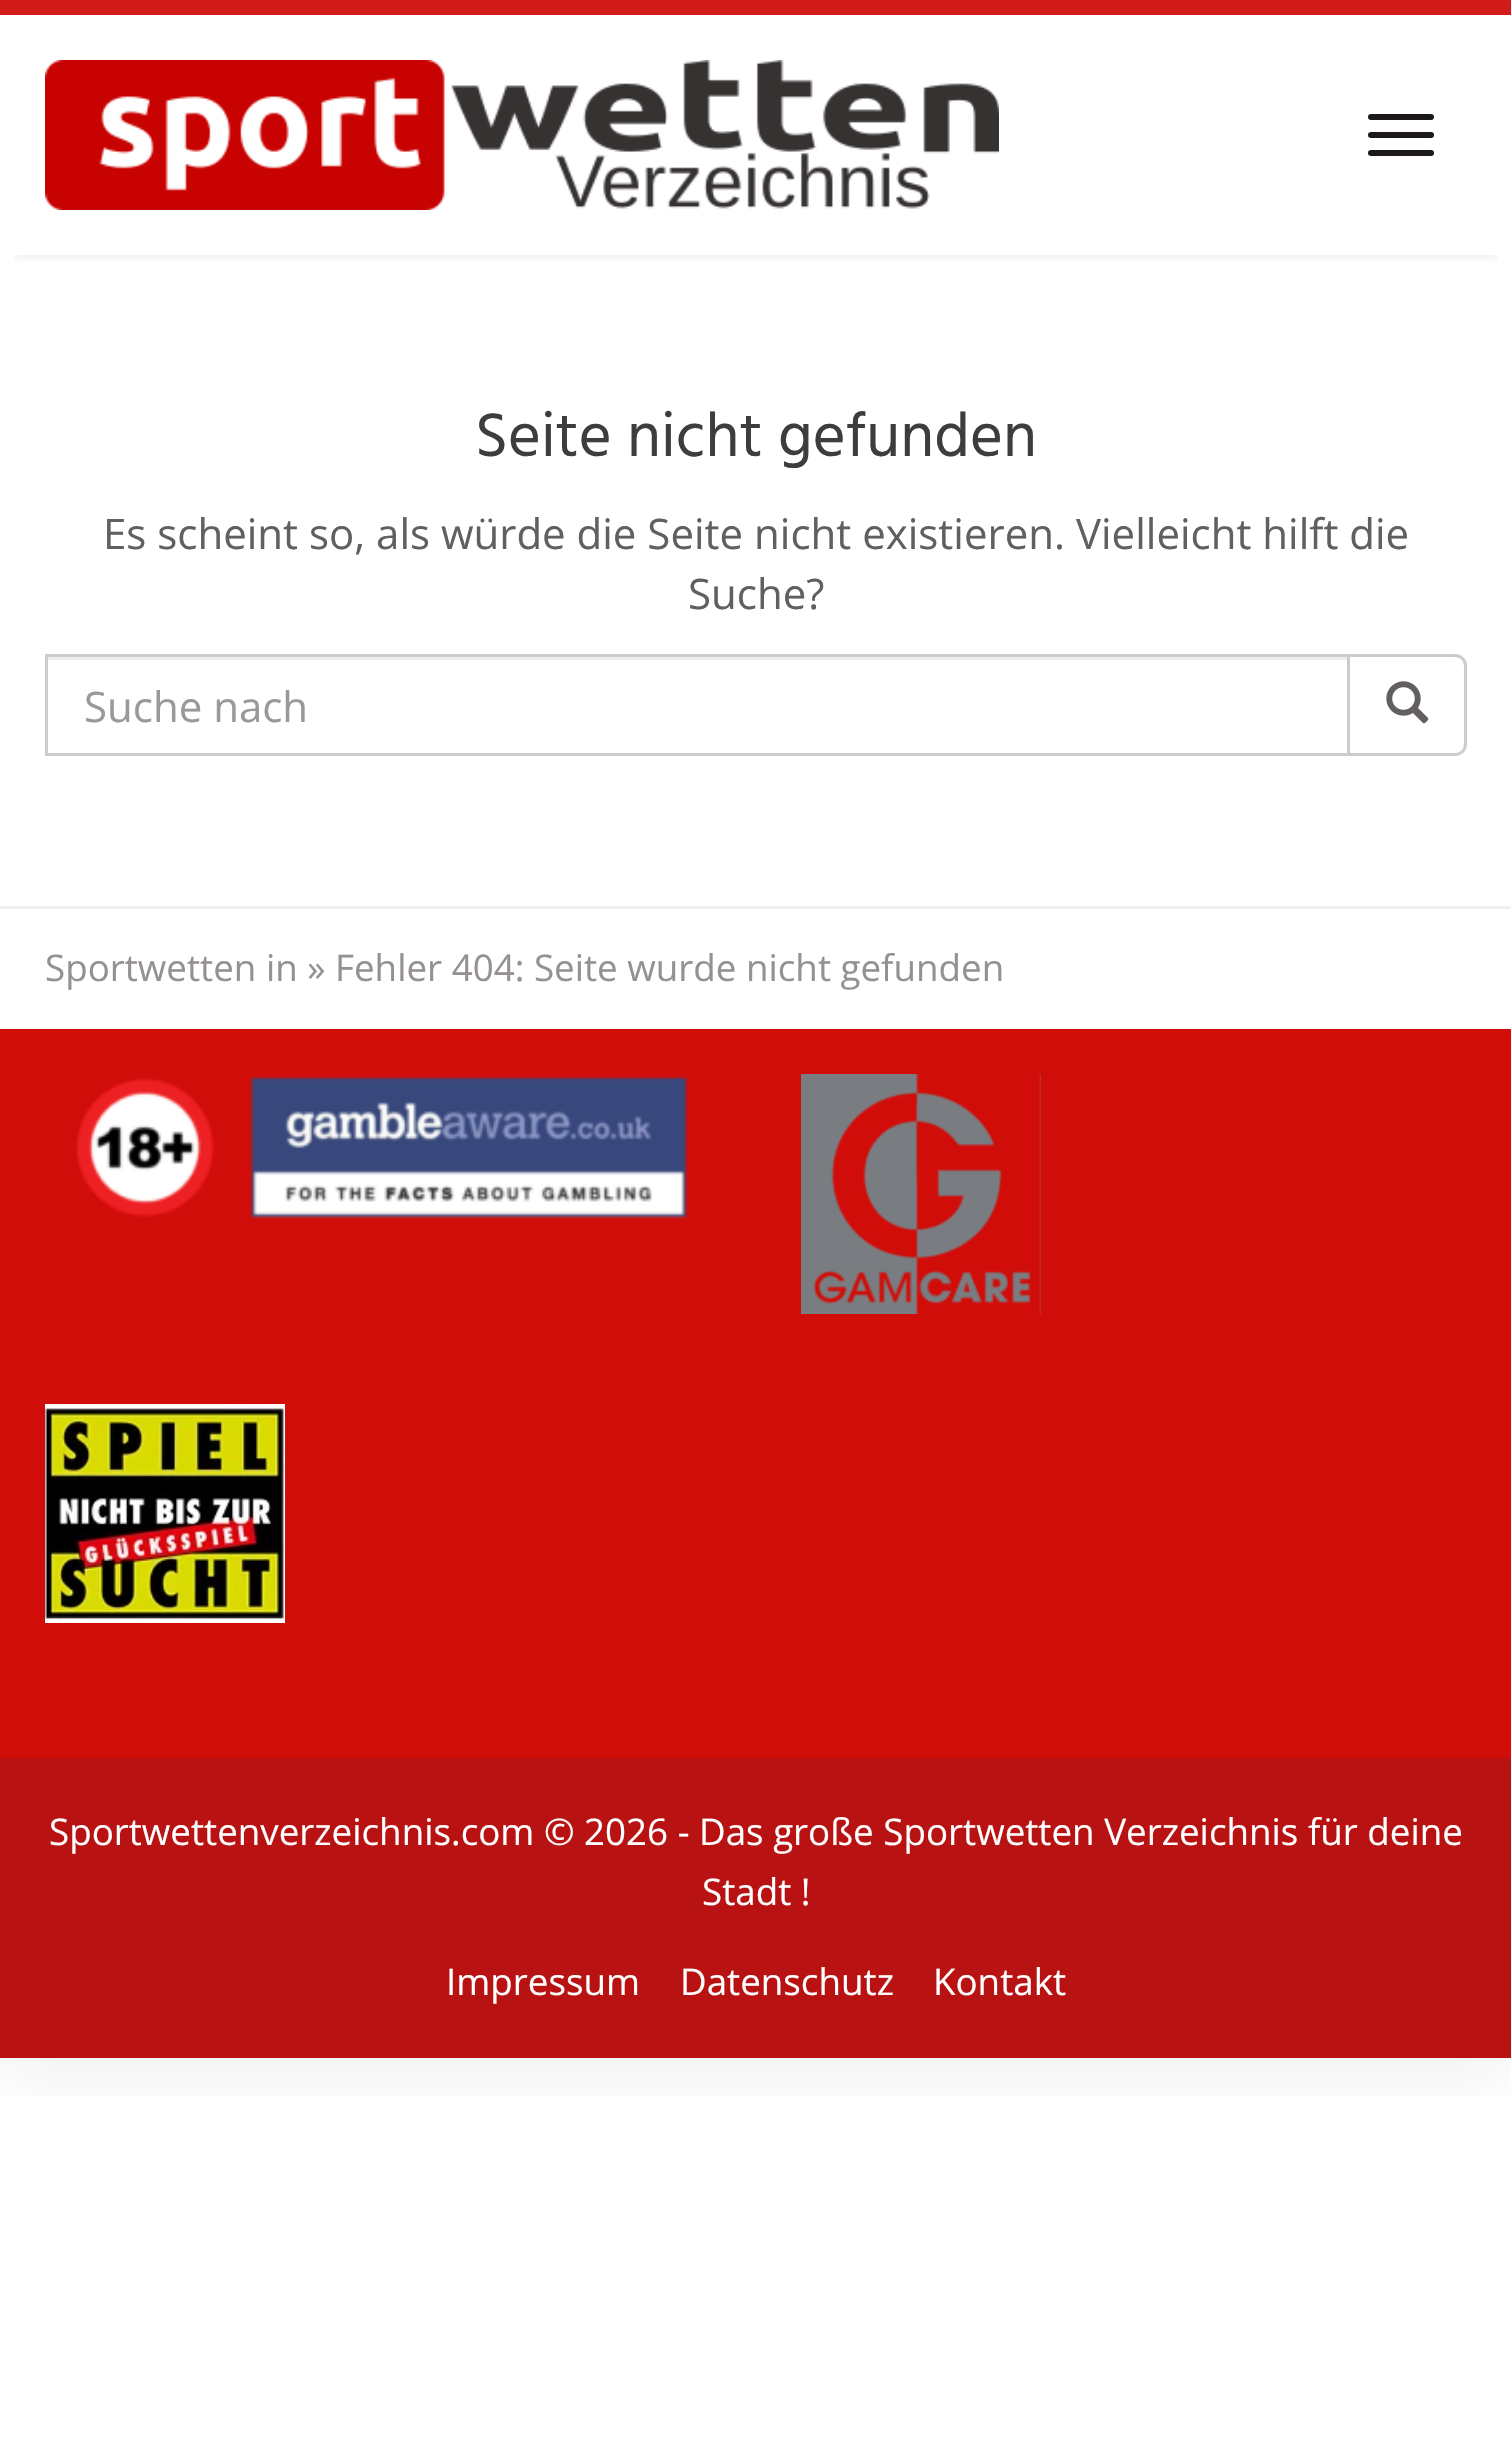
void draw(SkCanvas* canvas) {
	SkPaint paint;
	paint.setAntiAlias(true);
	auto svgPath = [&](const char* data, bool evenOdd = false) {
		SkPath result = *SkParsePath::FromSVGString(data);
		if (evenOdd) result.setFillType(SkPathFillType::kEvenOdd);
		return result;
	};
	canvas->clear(0xffffffff);
	canvas->save();
	canvas->clipRect(SkRect::MakeXYWH(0, 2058, 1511, 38));
	paint.setColor(0x1a1e1919);
	paint.setMaskFilter(SkMaskFilter::MakeBlur(kNormal_SkBlurStyle, 45));
	canvas->drawRect(SkRect::MakeXYWH(0, 0, 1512, 2058), paint);
	paint.setMaskFilter(nullptr);
	canvas->restore();
	paint.setColor(0xffd21c1c);
	canvas->drawRect(SkRect::MakeXYWH(0, 0, 1511, 15), paint);
	canvas->save();
	canvas->clipRect(SkRect::MakeXYWH(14, 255, 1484, 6));
	paint.setColor(0x1a000000);
	paint.setMaskFilter(SkMaskFilter::MakeBlur(kNormal_SkBlurStyle, 7.5));
	canvas->drawRect(SkRect::MakeXYWH(15, 45, 1482, 210), paint);
	paint.setMaskFilter(nullptr);
	canvas->restore();
	canvas->drawImageRect(SkImages::DeferredFromEncodedData(SkData::MakeFromFileName("img1.png")), SkRect::MakeXYWH(45, 60, 954, 150), SkSamplingOptions());
	paint.setColor(0xff1e1919);
	canvas->drawRoundRect(SkRect::MakeXYWH(1368, 114, 66, 6), 3, 3, paint);
	canvas->drawRoundRect(SkRect::MakeXYWH(1368, 132, 66, 6), 3, 3, paint);
	canvas->drawRoundRect(SkRect::MakeXYWH(1368, 150, 66, 6), 3, 3, paint);
	SkFont f1(fontMgr->matchFamilyStyle("Hind", SkFontStyle::Normal()), 63);
	f1.setSubpixel(true);
	paint.setColor(0xff3d3d3d);
	canvas->drawString("Seite nicht gefunden", 475, 456, f1, paint);
	SkFont f2(fontMgr->matchFamilyStyle("Open Sans", SkFontStyle::Normal()), 42);
	f2.setSubpixel(true);
	paint.setColor(0xff645f5f);
	canvas->drawString("Es scheint so, als würde die Seite nicht existieren. Vielleicht hilft die", 103, 549, f2, paint);
	canvas->drawString("Suche?", 688, 609, f2, paint);
	paint.setColor(0xffececec);
	canvas->drawRect(SkRect::MakeXYWH(48, 657, 1299, 3), paint);
	paint.setStroke(true);
	paint.setStrokeWidth(3);
	paint.setColor(0xffcccccc);
	canvas->drawRect(SkRect::MakeXYWH(46.5, 655.5, 1302, 99), paint);
	paint.setStroke(false);
	paint.setColor(0xff999999);
	canvas->drawString("Suche nach", 84, 722, f2, paint);
	paint.setColor(0xffffffff);
	canvas->drawPath(svgPath("M1348.5 655.5H1455C1461 655.5 1465.5 660 1465.5 666V744C1465.5 750 1461 754.5 1455 754.5H1348.5Z"), paint);
	paint.setStroke(true);
	paint.setColor(0xffcccccc);
	canvas->drawPath(svgPath("M1348.5 655.5H1455C1461 655.5 1465.5 660 1465.5 666V744C1465.5 750 1461 754.5 1455 754.5H1348.5Z"), paint);
	canvas->drawImageRect(SkImages::DeferredFromEncodedData(SkData::MakeFromFileName("img2.png")), SkRect::MakeXYWH(1386, 681, 43, 43), SkSamplingOptions());
	paint.setStroke(false);
	paint.setColor(0xffefefef);
	canvas->drawRect(SkRect::MakeXYWH(0, 906, 1511, 3), paint);
	SkFont f3(fontMgr->matchFamilyStyle("Open Sans", SkFontStyle::Normal()), 36.75);
	f3.setSubpixel(true);
	paint.setColor(0xff969191);
	canvas->drawString("Sportwetten in » Fehler 404: Seite wurde nicht gefunden", 45, 981, f3, paint);
	paint.setColor(0xffd10d09);
	canvas->drawRect(SkRect::MakeXYWH(0, 1029, 1511, 729), paint);
	canvas->drawImageRect(SkImages::DeferredFromEncodedData(SkData::MakeFromFileName("img3.png")), SkRect::MakeXYWH(76, 1076, 612, 144), SkSamplingOptions());
	canvas->drawImageRect(SkImages::DeferredFromEncodedData(SkData::MakeFromFileName("img4.png")), SkRect::MakeXYWH(801, 1074, 240, 240), SkSamplingOptions());
	canvas->drawImageRect(SkImages::DeferredFromEncodedData(SkData::MakeFromFileName("img5.png")), SkRect::MakeXYWH(45, 1404, 240, 219), SkSamplingOptions());
	paint.setColor(0xffb91212);
	canvas->drawRect(SkRect::MakeXYWH(0, 1758, 1511, 300), paint);
	paint.setColor(0xffffffff);
	canvas->drawString("Sportwettenverzeichnis.com © 2026 - Das große Sportwetten Verzeichnis für deine", 49, 1845, f3, paint);
	canvas->drawString("Stadt !", 702, 1905, f3, paint);
	canvas->drawString("Impressum", 446, 1995, f3, paint);
	canvas->drawString("Datenschutz", 680, 1995, f3, paint);
	canvas->drawString("Kontakt", 933, 1995, f3, paint);
}
